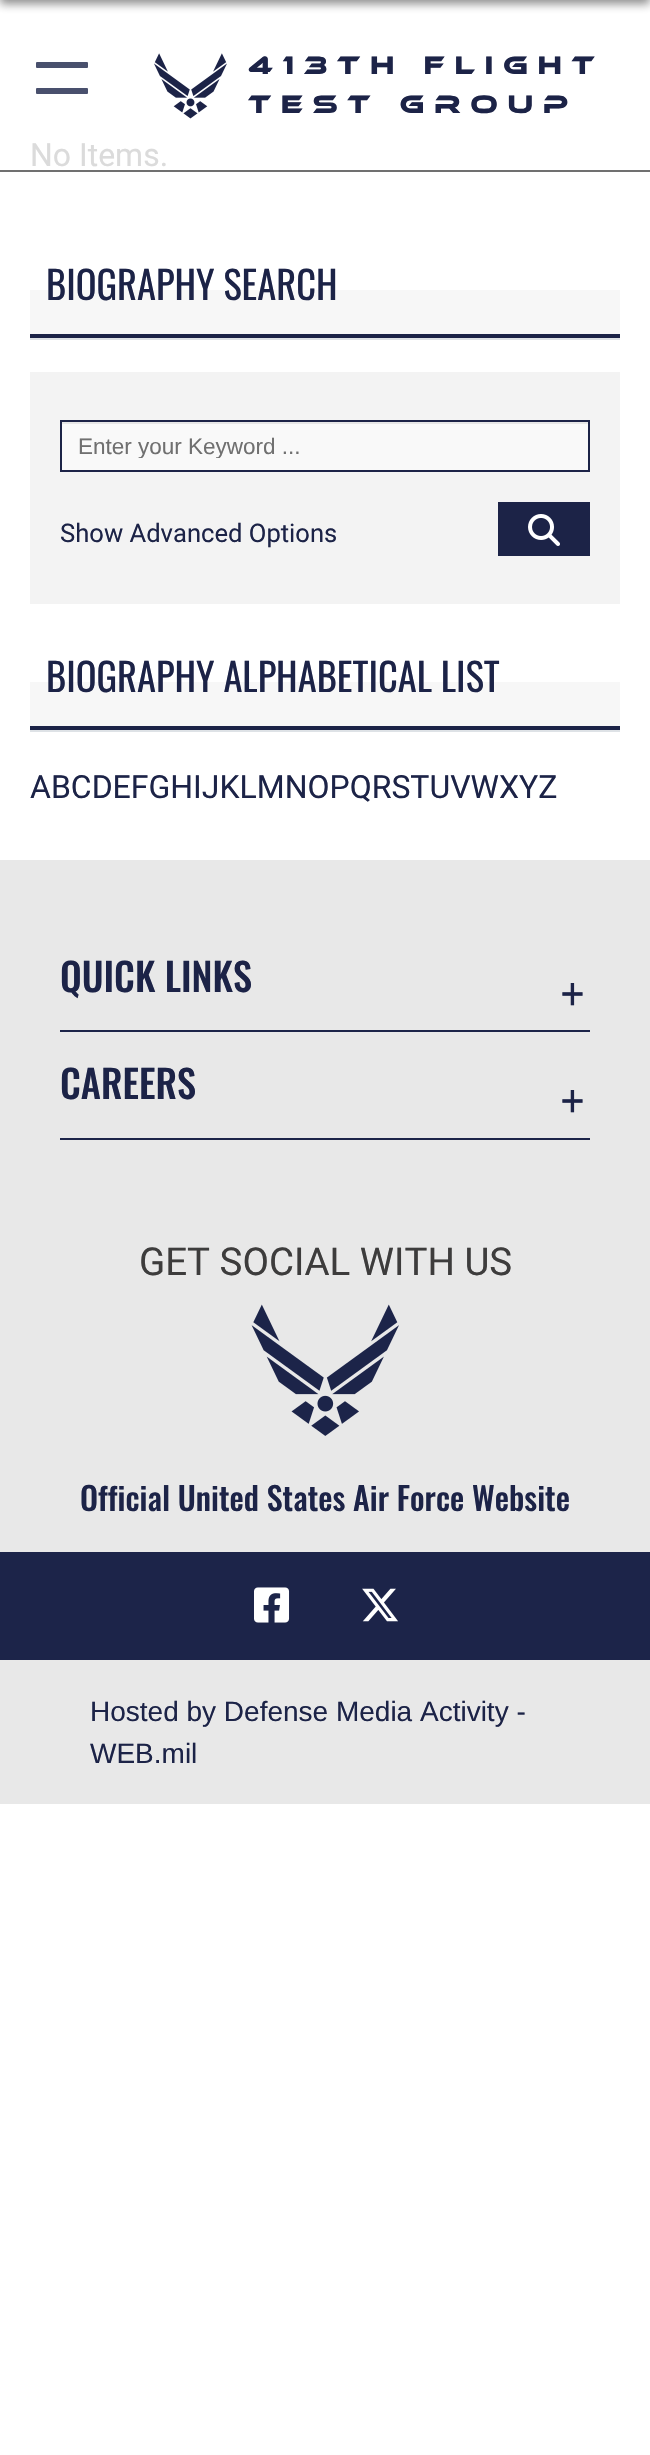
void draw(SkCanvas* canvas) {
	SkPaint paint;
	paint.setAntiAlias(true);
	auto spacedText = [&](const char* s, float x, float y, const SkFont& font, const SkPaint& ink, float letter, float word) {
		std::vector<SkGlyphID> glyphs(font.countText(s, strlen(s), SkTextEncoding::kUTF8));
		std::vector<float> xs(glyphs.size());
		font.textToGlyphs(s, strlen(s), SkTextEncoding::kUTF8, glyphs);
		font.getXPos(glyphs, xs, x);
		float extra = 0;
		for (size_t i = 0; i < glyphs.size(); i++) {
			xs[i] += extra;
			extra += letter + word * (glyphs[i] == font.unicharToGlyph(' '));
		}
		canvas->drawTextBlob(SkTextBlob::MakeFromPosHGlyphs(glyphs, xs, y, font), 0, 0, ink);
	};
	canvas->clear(0xffffffff);
	paint.setColor(0x801a1a1a);
	paint.setMaskFilter(SkMaskFilter::MakeBlur(kNormal_SkBlurStyle, 5));
	canvas->drawRect(SkRect::MakeXYWH(0, -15, 650, 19), paint);
	paint.setMaskFilter(nullptr);
	paint.setColor(0xff707070);
	canvas->drawRect(SkRect::MakeXYWH(0, 170, 650, 2), paint);
	paint.setColor(0xff49506d);
	canvas->drawRoundRect(SkRect::MakeXYWH(36, 62, 52, 6), 1, 1, paint);
	canvas->drawRoundRect(SkRect::MakeXYWH(36, 88, 52, 6), 1, 1, paint);
	canvas->drawImageRect(SkImages::DeferredFromEncodedData(SkData::MakeFromFileName("img1.png")), SkRect::MakeXYWH(154, 53, 73, 66), SkSamplingOptions());
	SkFont f1(fontMgr->matchFamilyStyle("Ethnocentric", SkFontStyle::Normal()), 26);
	f1.setSubpixel(true);
	paint.setColor(0xff1c2347);
	spacedText("413th Flight", 248, 74, f1, paint, 9.6, 0);
	spacedText("Test Group", 248, 113, f1, paint, 9.6, 0);
	SkFont f2(fontMgr->matchFamilyStyle("Roboto", SkFontStyle::Normal()), 32);
	f2.setSubpixel(true);
	paint.setColor(0xffdbdbdb);
	canvas->drawString("No Items.", 30, 166, f2, paint);
	{
		const SkColor colors[] = {0xffffffff, 0xffffffff, 0xfff7f7f7, 0xfff7f7f7};
		const float stops[] = {0, 0.38, 0.38, 1};
		const SkPoint ends[] = {{325, 260}, {325, 338}};
		paint.setShader(SkGradientShader::MakeLinear(ends, colors, stops, 4, SkTileMode::kClamp));
		paint.setAlpha(255);
	}
	canvas->drawRect(SkRect::MakeXYWH(30, 290, 590, 44), paint);
	paint.setShader(nullptr);
	paint.setColor(0xffdee2e6);
	canvas->drawRect(SkRect::MakeXYWH(30, 338, 590, 2), paint);
	SkFont f3(fontMgr->matchFamilyStyle("Oswald", SkFontStyle::Normal()), 38.5);
	f3.setSubpixel(true);
	paint.setColor(0xff1c2347);
	canvas->drawString("BIOGRAPHY SEARCH", 46, 300, f3, paint);
	canvas->drawRect(SkRect::MakeXYWH(30, 334, 590, 4), paint);
	paint.setColor(0xfff3f3f3);
	canvas->drawRect(SkRect::MakeXYWH(30, 372, 590, 232), paint);
	paint.setColor(0xfff9f9f9);
	canvas->drawRect(SkRect::MakeXYWH(62, 424, 526, 46), paint);
	paint.setColor(0xffe6e6e6);
	canvas->drawRect(SkRect::MakeXYWH(62, 422, 526, 2), paint);
	paint.setStroke(true);
	paint.setStrokeWidth(2);
	paint.setColor(0xff1c2347);
	canvas->drawRect(SkRect::MakeXYWH(61, 421, 528, 50), paint);
	canvas->save();
	canvas->clipRect(SkRect::MakeXYWH(78, 434, 494, 24));
	SkFont f4(fontMgr->matchFamilyStyle("Liberation Sans", SkFontStyle::Normal()), 22.5);
	f4.setSubpixel(true);
	paint.setStroke(false);
	paint.setColor(0xff707070);
	canvas->drawString("Enter your Keyword ...", 78, 454, f4, paint);
	canvas->restore();
	paint.setColor(0xff1c2347);
	canvas->drawRect(SkRect::MakeXYWH(498, 502, 92, 54), paint);
	canvas->drawImageRect(SkImages::DeferredFromEncodedData(SkData::MakeFromFileName("img2.png")), SkRect::MakeXYWH(528, 514, 32, 32), SkSamplingOptions());
	SkFont f5(fontMgr->matchFamilyStyle("Roboto", SkFontStyle::Normal()), 25.6);
	f5.setSubpixel(true);
	canvas->drawString("Show Advanced Options", 60, 542, f5, paint);
	{
		const SkColor colors[] = {0xffffffff, 0xffffffff, 0xfff7f7f7, 0xfff7f7f7};
		const float stops[] = {0, 0.38, 0.38, 1};
		const SkPoint ends[] = {{325, 652}, {325, 730}};
		paint.setShader(SkGradientShader::MakeLinear(ends, colors, stops, 4, SkTileMode::kClamp));
		paint.setAlpha(255);
	}
	canvas->drawRect(SkRect::MakeXYWH(30, 682, 590, 44), paint);
	paint.setShader(nullptr);
	paint.setColor(0xffdee2e6);
	canvas->drawRect(SkRect::MakeXYWH(30, 730, 590, 2), paint);
	paint.setColor(0xff1c2347);
	canvas->drawString("BIOGRAPHY ALPHABETICAL LIST", 46, 692, f3, paint);
	canvas->drawRect(SkRect::MakeXYWH(30, 726, 590, 4), paint);
	canvas->drawString("ABCDEFGHIJKLMNOPQRSTUVWX", 30, 798, f2, paint);
	canvas->drawString("YZ", 519, 798, f2, paint);
	paint.setColor(0xffe8e8e8);
	canvas->drawRect(SkRect::MakeXYWH(0, 860, 650, 944), paint);
	paint.setColor(0xff1c2449);
	canvas->drawRect(SkRect::MakeXYWH(60, 1030, 530, 2), paint);
	SkFont f6(fontMgr->matchFamilyStyle("Oswald", SkFontStyle(500, SkFontStyle::kNormal_Width, SkFontStyle::kUpright_Slant)), 38.5);
	f6.setSubpixel(true);
	paint.setColor(0xff1c2347);
	canvas->drawString("QUICK LINKS", 60, 992, f6, paint);
	SkFont f7(fontMgr->matchFamilyStyle("Oswald", SkFontStyle(300, SkFontStyle::kNormal_Width, SkFontStyle::kUpright_Slant)), 60);
	f7.setSubpixel(true);
	canvas->drawString("+", 561, 1019, f7, paint);
	paint.setColor(0xff1c2449);
	canvas->drawRect(SkRect::MakeXYWH(60, 1138, 530, 2), paint);
	paint.setColor(0xff1c2347);
	canvas->drawString("CAREERS", 60, 1099, f6, paint);
	canvas->drawString("+", 561, 1126, f7, paint);
	SkFont f8(fontMgr->matchFamilyStyle("Roboto", SkFontStyle::Normal()), 38.5);
	f8.setSubpixel(true);
	paint.setColor(0xff3d3c3c);
	canvas->drawString("GET SOCIAL WITH US", 139, 1275, f8, paint);
	canvas->drawImageRect(SkImages::DeferredFromEncodedData(SkData::MakeFromFileName("img3.png")), SkRect::MakeXYWH(251, 1304, 148, 132), SkSamplingOptions());
	SkFont f9(fontMgr->matchFamilyStyle("Oswald", SkFontStyle(500, SkFontStyle::kNormal_Width, SkFontStyle::kUpright_Slant)), 32);
	f9.setSubpixel(true);
	paint.setColor(0xff1c2347);
	canvas->drawString("Official United States Air Force Website", 80, 1511, f9, paint);
	paint.setColor(0xff1c2449);
	canvas->drawRect(SkRect::MakeXYWH(0, 1552, 650, 108), paint);
	canvas->drawImageRect(SkImages::DeferredFromEncodedData(SkData::MakeFromFileName("img4.png")), SkRect::MakeXYWH(254, 1587, 36, 36), SkSamplingOptions());
	canvas->drawImageRect(SkImages::DeferredFromEncodedData(SkData::MakeFromFileName("img5.png")), SkRect::MakeXYWH(362, 1588, 36, 34), SkSamplingOptions());
	SkFont f10(fontMgr->matchFamilyStyle("Liberation Sans", SkFontStyle::Normal()), 28);
	f10.setSubpixel(true);
	paint.setColor(0xff1c2347);
	canvas->drawString("Hosted by Defense Media Activity -", 90, 1721, f10, paint);
	canvas->drawString("WEB.mil", 90, 1763, f10, paint);
}
